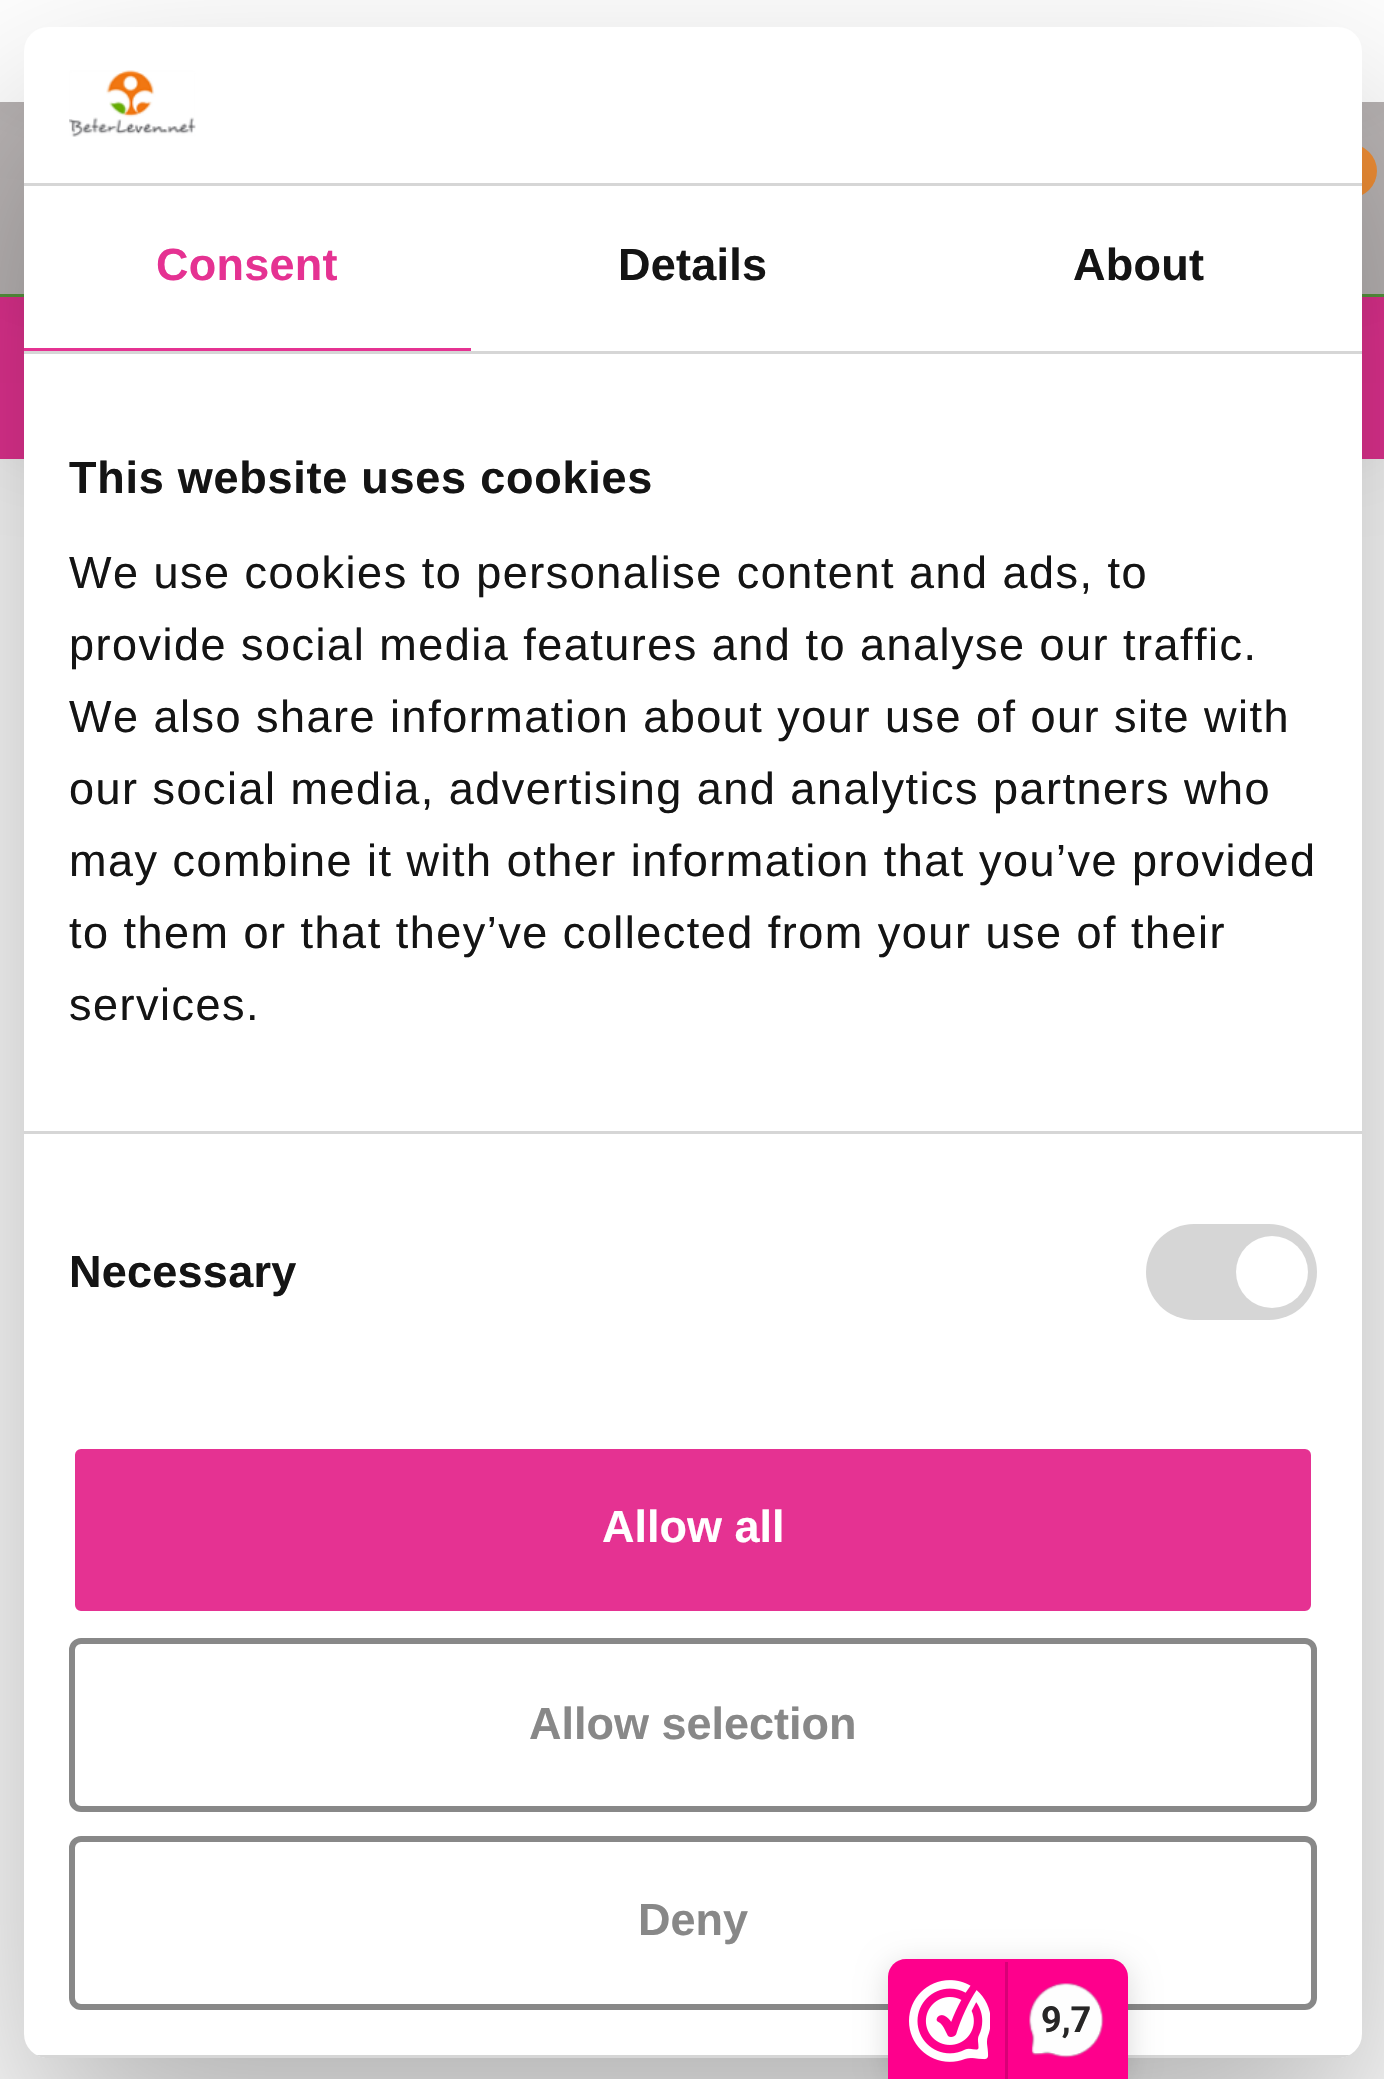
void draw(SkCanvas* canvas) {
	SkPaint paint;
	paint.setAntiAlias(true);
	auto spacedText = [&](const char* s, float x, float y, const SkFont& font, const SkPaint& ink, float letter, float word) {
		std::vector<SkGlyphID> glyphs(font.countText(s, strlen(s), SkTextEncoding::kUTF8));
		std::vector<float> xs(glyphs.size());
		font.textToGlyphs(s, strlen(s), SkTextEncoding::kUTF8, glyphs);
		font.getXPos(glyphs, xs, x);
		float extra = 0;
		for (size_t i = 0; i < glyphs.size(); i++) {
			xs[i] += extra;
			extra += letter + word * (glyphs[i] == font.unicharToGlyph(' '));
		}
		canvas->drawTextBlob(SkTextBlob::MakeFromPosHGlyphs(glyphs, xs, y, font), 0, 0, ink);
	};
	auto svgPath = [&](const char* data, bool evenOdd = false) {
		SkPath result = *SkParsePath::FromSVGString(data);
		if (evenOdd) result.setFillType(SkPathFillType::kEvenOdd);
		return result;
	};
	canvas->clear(0xffffffff);
	paint.setColor(0x14000000);
	paint.setMaskFilter(SkMaskFilter::MakeBlur(kNormal_SkBlurStyle, 33));
	canvas->drawRect(SkRect::MakeXYWH(0, 294, 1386, 165), paint);
	paint.setMaskFilter(nullptr);
	paint.setColor(0xffe53292);
	canvas->drawRect(SkRect::MakeXYWH(0, 297, 1384, 162), paint);
	paint.setColor(0xff5a9a40);
	canvas->drawRect(SkRect::MakeXYWH(0, 294, 1384, 3), paint);
	paint.setColor(0x12000000);
	paint.setMaskFilter(SkMaskFilter::MakeBlur(kNormal_SkBlurStyle, 30));
	canvas->drawRect(SkRect::MakeXYWH(0, 0, 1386, 294), paint);
	paint.setMaskFilter(nullptr);
	paint.setColor(0xffbcb7b7);
	canvas->drawRect(SkRect::MakeXYWH(0, 102, 1384, 192), paint);
	paint.setColor(0x14000000);
	paint.setMaskFilter(SkMaskFilter::MakeBlur(kNormal_SkBlurStyle, 33));
	canvas->drawRect(SkRect::MakeXYWH(0, 0, 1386, 102), paint);
	paint.setMaskFilter(nullptr);
	paint.setColor(0xffffffff);
	canvas->drawRect(SkRect::MakeXYWH(0, 0, 1384, 102), paint);
	paint.setColor(0xfff39036);
	canvas->drawCircle(1350, 171, 27, paint);
	canvas->drawImageRect(SkImages::DeferredFromEncodedData(SkData::MakeFromFileName("img4.png")), SkRect::MakeXYWH(45, 2057, 3, 1), SkSamplingOptions());
	paint.setColor(0x4d000000);
	paint.setMaskFilter(SkMaskFilter::MakeBlur(kNormal_SkBlurStyle, 102));
	canvas->drawRoundRect(SkRect::MakeXYWH(24, 123, 1338, 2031), 24, 24, paint);
	paint.setMaskFilter(nullptr);
	paint.setColor(0xffffffff);
	canvas->drawRoundRect(SkRect::MakeXYWH(24, 27, 1338, 2031), 24, 24, paint);
	paint.setColor(0xffd6d6d6);
	canvas->drawRect(SkRect::MakeXYWH(24, 183, 1338, 3), paint);
	canvas->drawImageRect(SkImages::DeferredFromEncodedData(SkData::MakeFromFileName("img1.png")), SkRect::MakeXYWH(69, 70, 127, 67), SkSamplingOptions());
	canvas->drawRect(SkRect::MakeXYWH(24, 351, 1338, 3), paint);
	paint.setColor(0xffe53292);
	canvas->drawRect(SkRect::MakeXYWH(24, 348, 447, 3), paint);
	SkFont f1(fontMgr->matchFamilyStyle("Liberation Sans", SkFontStyle::Bold()), 45);
	f1.setSubpixel(true);
	spacedText("Consent", 156, 280, f1, paint, 0.25, 0);
	paint.setColor(0xff141414);
	spacedText("Details", 618, 280, f1, paint, 0.25, 0);
	spacedText("About", 1073, 280, f1, paint, 0.25, 0);
	paint.setColor(0xffd6d6d6);
	canvas->drawRect(SkRect::MakeXYWH(24, 1131, 1338, 3), paint);
	paint.setColor(0xff141414);
	spacedText("This website uses cookies", 69, 493, f1, paint, 0.75, 0);
	SkFont f2(fontMgr->matchFamilyStyle("Liberation Sans", SkFontStyle::Normal()), 45);
	f2.setSubpixel(true);
	spacedText("We use cookies to personalise content and ads, to", 69, 588, f2, paint, 1.5, 0);
	spacedText("provide social media features and to analyse our traffic.", 69, 660, f2, paint, 1.5, 0);
	spacedText("We also share information about your use of our site with", 69, 732, f2, paint, 1.5, 0);
	spacedText("our social media, advertising and analytics partners who", 69, 804, f2, paint, 1.5, 0);
	spacedText("may combine it with other information that you’ve provided", 69, 876, f2, paint, 1.5, 0);
	spacedText("to them or that they’ve collected from your use of their", 69, 948, f2, paint, 1.5, 0);
	spacedText("services.", 69, 1020, f2, paint, 1.5, 0);
	spacedText("Necessary", 69, 1287, f1, paint, 0.25, 0);
	paint.setColor(0xffd6d6d6);
	canvas->drawRoundRect(SkRect::MakeXYWH(1146, 1224, 171, 96), 48, 48, paint);
	paint.setColor(0xffffffff);
	canvas->drawCircle(1272, 1272, 36, paint);
	canvas->save();
	canvas->clipPath(svgPath("M48 27H1338C1351.5 27 1362 37.5 1362 51V2034C1362 2047.5 1351.5 2058 1338 2058H48C34.5 2058 24 2047.5 24 2034V51C24 37.5 34.5 27 48 27Z"), true);
	paint.setColor(0xffd6d6d6);
	canvas->drawRect(SkRect::MakeXYWH(36, 2055, 1314, 3), paint);
	canvas->restore();
	paint.setColor(0xffe53292);
	canvas->drawRoundRect(SkRect::MakeXYWH(72, 1446, 1242, 168), 9, 9, paint);
	paint.setStroke(true);
	paint.setStrokeWidth(6);
	paint.setColor(0xffffffff);
	canvas->drawRoundRect(SkRect::MakeXYWH(72, 1446, 1242, 168), 9, 9, paint);
	paint.setStroke(false);
	canvas->drawString("Allow all", 602, 1542, f1, paint);
	paint.setStroke(true);
	paint.setColor(0xff888888);
	canvas->drawRoundRect(SkRect::MakeXYWH(72, 1641, 1242, 168), 9, 9, paint);
	paint.setStroke(false);
	canvas->drawString("Allow selection", 529, 1739, f1, paint);
	paint.setStroke(true);
	canvas->drawRoundRect(SkRect::MakeXYWH(72, 1839, 1242, 168), 9, 9, paint);
	paint.setStroke(false);
	canvas->drawString("Deny", 638, 1935, f1, paint);
	paint.setColor(0x26000000);
	paint.setMaskFilter(SkMaskFilter::MakeBlur(kNormal_SkBlurStyle, 15));
	canvas->drawRoundRect(SkRect::MakeXYWH(888, 1965, 240, 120), 18, 18, paint);
	paint.setMaskFilter(nullptr);
	paint.setColor(0xfffe008c);
	canvas->drawPath(svgPath("M906 1959H1110C1120 1959 1128 1967 1128 1977V2079H888V1977C888 1967 896 1959 906 1959Z"), paint);
	canvas->drawImageRect(SkImages::DeferredFromEncodedData(SkData::MakeFromFileName("img2.png")), SkRect::MakeXYWH(909, 1980, 81, 82), SkSamplingOptions());
	paint.setColor(0xffd80077);
	canvas->drawRect(SkRect::MakeXYWH(1005, 1962, 3, 117), paint);
	canvas->drawImageRect(SkImages::DeferredFromEncodedData(SkData::MakeFromFileName("img3.png")), SkRect::MakeXYWH(1029, 1983, 76, 75), SkSamplingOptions());
	SkFont f3(fontMgr->matchFamilyStyle("Roboto", SkFontStyle::Bold()), 36);
	f3.setSubpixel(true);
	paint.setColor(0xff272626);
	canvas->drawString("9,7", 1041, 2032, f3, paint);
}
